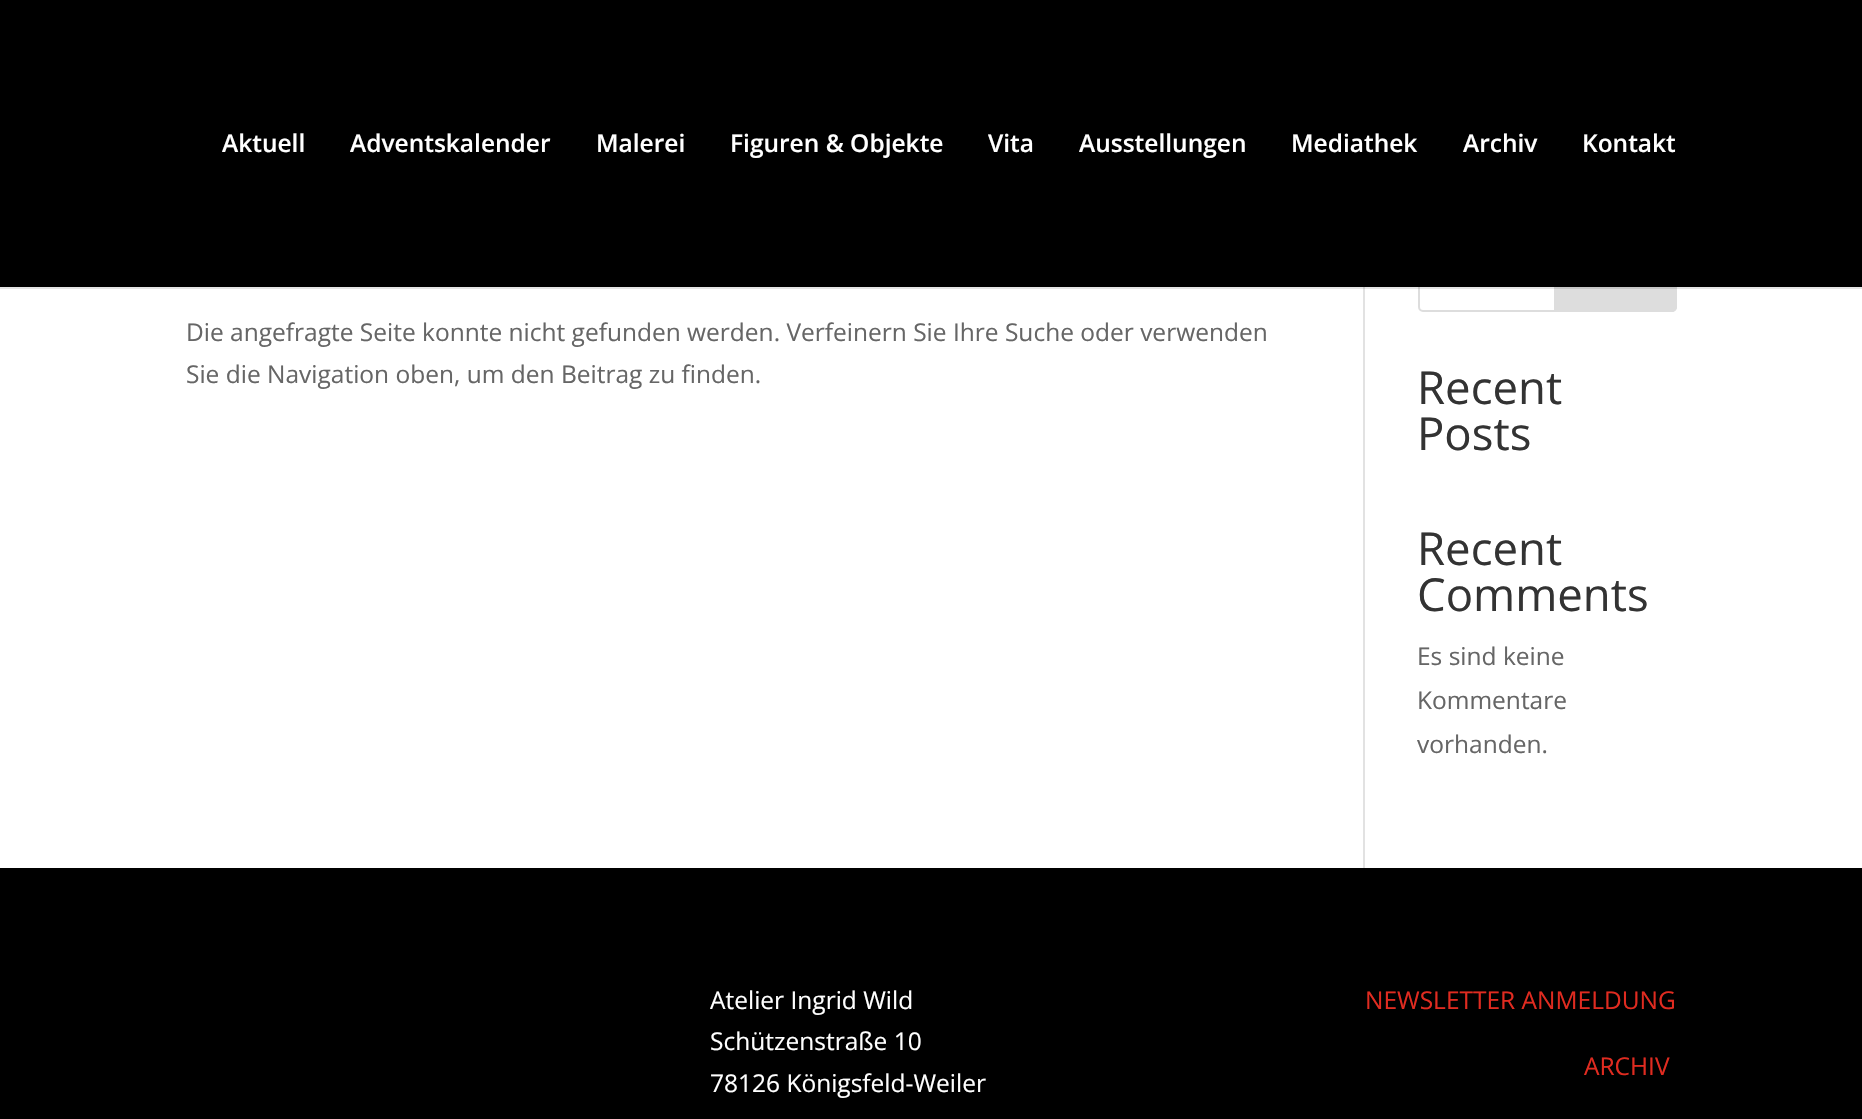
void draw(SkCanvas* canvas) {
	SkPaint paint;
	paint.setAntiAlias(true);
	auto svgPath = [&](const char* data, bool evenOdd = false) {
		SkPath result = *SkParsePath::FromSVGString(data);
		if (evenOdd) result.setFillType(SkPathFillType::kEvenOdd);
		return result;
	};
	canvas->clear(0xff000000);
	paint.setColor(0xffffffff);
	canvas->drawRect(SkRect::MakeXYWH(0, 287, 1862, 581), paint);
	paint.setColor(0xffe2e2e2);
	canvas->drawRect(SkRect::MakeXYWH(1363, 287, 2, 581), paint);
	paint.setStroke(true);
	paint.setStrokeWidth(2);
	paint.setColor(0xffdddddd);
	canvas->drawRoundRect(SkRect::MakeXYWH(1419, 243, 257, 68), 4, 4, paint);
	paint.setStroke(false);
	canvas->drawPath(svgPath("M1555 243H1672C1674 243 1676 245 1676 247V307C1676 309 1674 311 1672 311H1555Z"), paint);
	paint.setStroke(true);
	canvas->drawPath(svgPath("M1555 243H1672C1674 243 1676 245 1676 247V307C1676 309 1674 311 1672 311H1555Z"), paint);
	paint.setStroke(false);
	paint.setColor(0x1a000000);
	canvas->drawRect(SkRect::MakeXYWH(0, 287, 1862, 2), paint);
	paint.setColor(0xff000000);
	canvas->drawRect(SkRect::MakeXYWH(1418, 242, 259, 45), paint);
	SkFont f1(fontMgr->matchFamilyStyle("Open Sans", SkFontStyle(600, SkFontStyle::kNormal_Width, SkFontStyle::kUpright_Slant)), 24.5);
	f1.setSubpixel(true);
	paint.setColor(0xffffffff);
	canvas->drawString("Aktuell", 222, 152, f1, paint);
	canvas->drawString("Adventskalender", 350, 152, f1, paint);
	canvas->drawString("Malerei", 596, 152, f1, paint);
	canvas->drawString("Figuren & Objekte", 730, 152, f1, paint);
	canvas->drawString("Vita", 988, 152, f1, paint);
	canvas->drawString("Ausstellungen", 1079, 152, f1, paint);
	canvas->drawString("Mediathek", 1291, 152, f1, paint);
	canvas->drawString("Archiv", 1463, 152, f1, paint);
	canvas->drawString("Kontakt", 1582, 152, f1, paint);
	SkFont f2(fontMgr->matchFamilyStyle("Open Sans", SkFontStyle::Normal()), 24.5);
	f2.setSubpixel(true);
	paint.setColor(0xff666666);
	canvas->drawString("Die angefragte Seite konnte nicht gefunden werden. Verfeinern Sie Ihre Suche oder verwenden", 186, 341, f2, paint);
	canvas->drawString("Sie die Navigation oben, um den Beitrag zu finden.", 186, 383, f2, paint);
	SkFont f3(fontMgr->matchFamilyStyle("Open Sans", SkFontStyle::Normal()), 45.5);
	f3.setSubpixel(true);
	paint.setColor(0xff333333);
	canvas->drawString("Recent", 1417, 404, f3, paint);
	canvas->drawString("Posts", 1417, 450, f3, paint);
	canvas->drawString("Recent", 1417, 565, f3, paint);
	canvas->drawString("Comments", 1417, 611, f3, paint);
	paint.setColor(0xff666666);
	canvas->drawString("Es sind keine", 1417, 665, f2, paint);
	canvas->drawString("Kommentare", 1417, 709, f2, paint);
	canvas->drawString("vorhanden.", 1417, 753, f2, paint);
	paint.setColor(0xffffffff);
	canvas->drawString("Atelier Ingrid Wild", 710, 1009, f2, paint);
	canvas->drawString("Schützenstraße 10", 710, 1050, f2, paint);
	canvas->drawString("78126 Königsfeld-Weiler", 710, 1092, f2, paint);
	paint.setColor(0xffe02b20);
	canvas->drawString("NEWSLETTER ANMELDUNG", 1365, 1009, f2, paint);
	canvas->drawString("ARCHIV", 1584, 1075, f2, paint);
}
